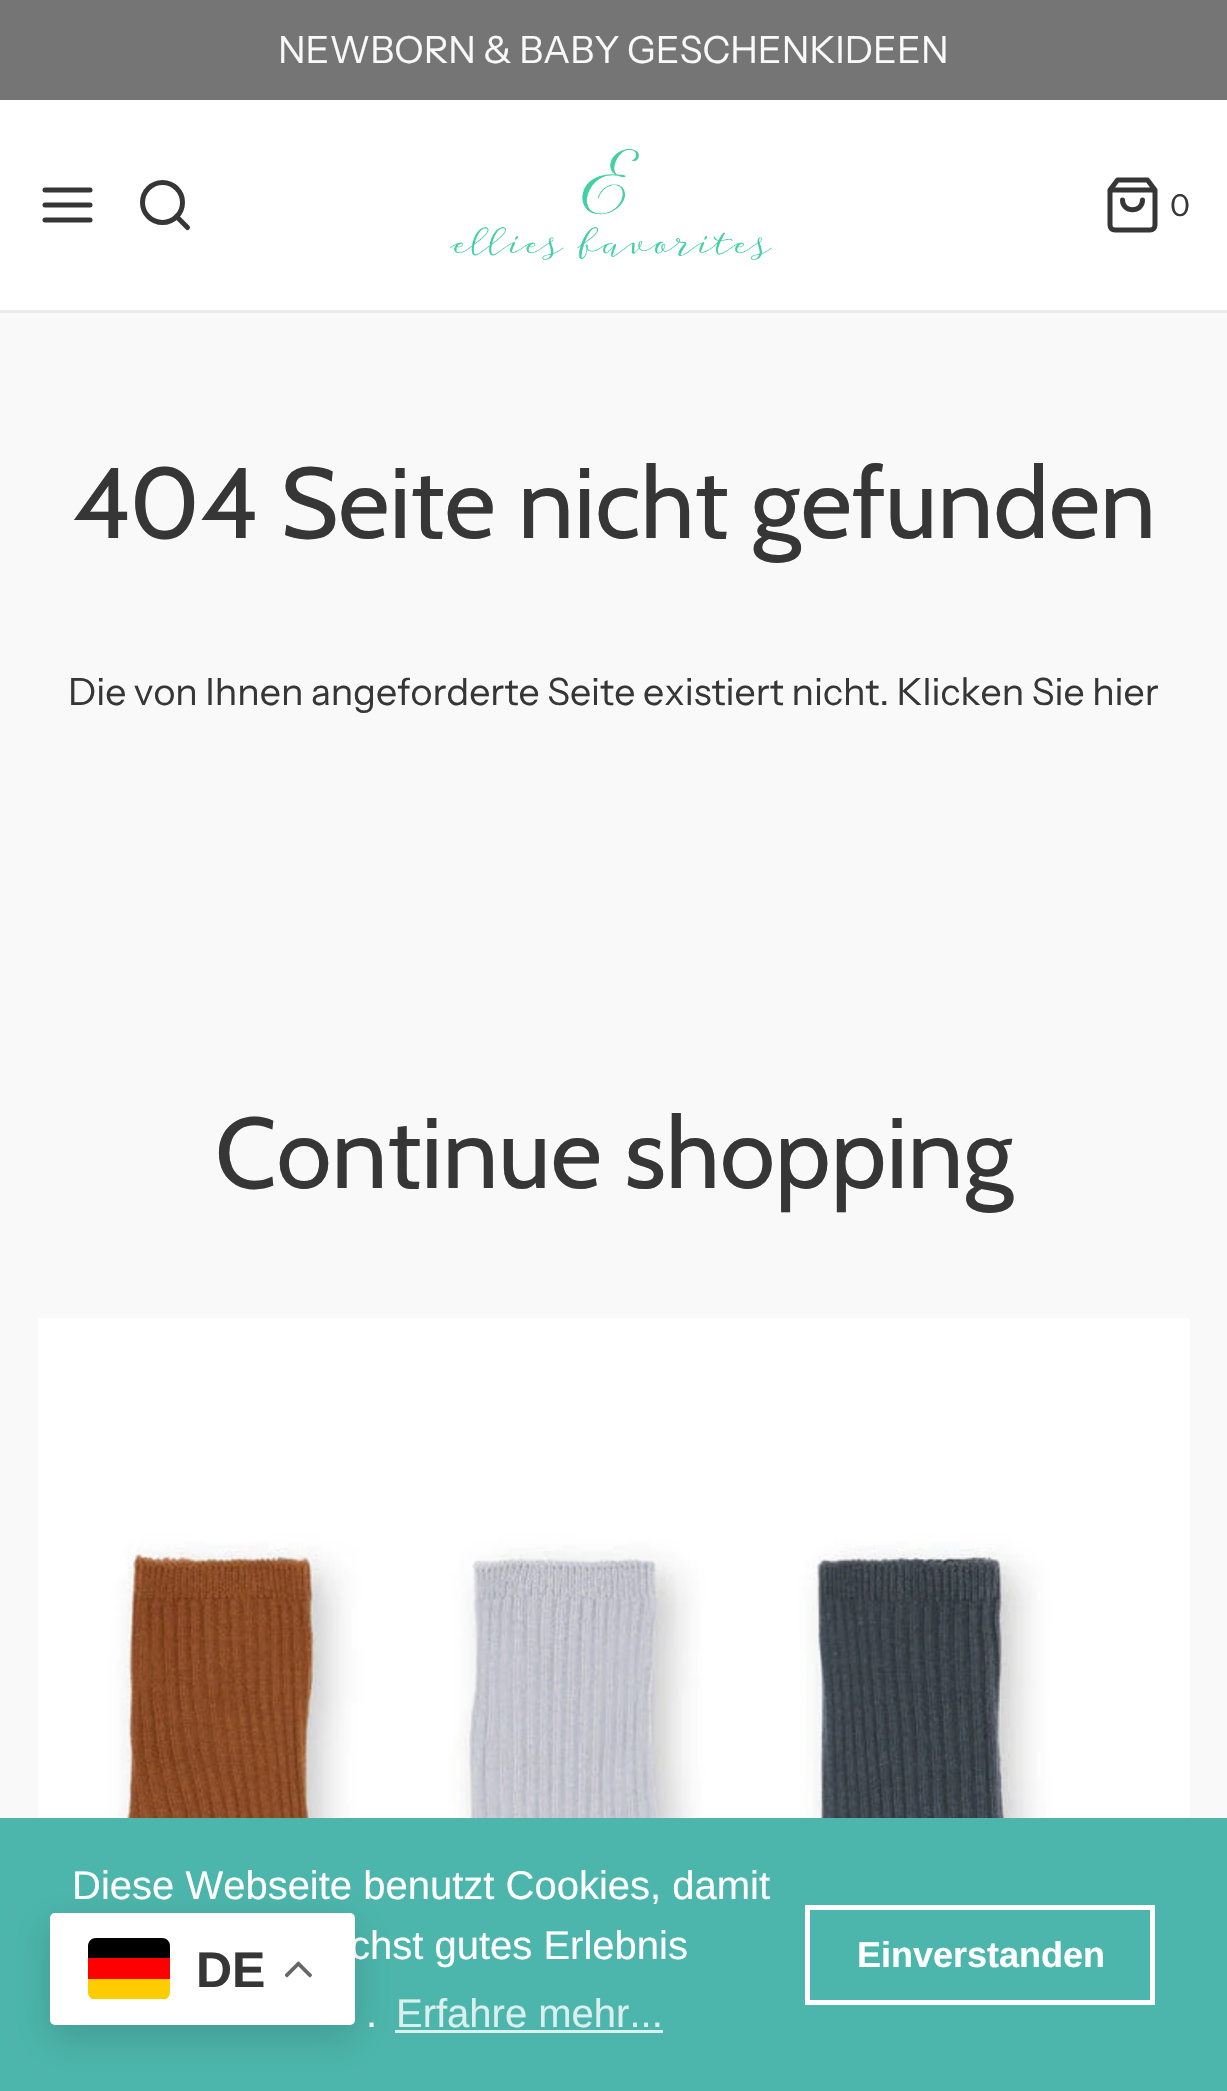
void draw(SkCanvas* canvas) {
	SkPaint paint;
	paint.setAntiAlias(true);
	auto svgPath = [&](const char* data, bool evenOdd = false) {
		SkPath result = *SkParsePath::FromSVGString(data);
		if (evenOdd) result.setFillType(SkPathFillType::kEvenOdd);
		return result;
	};
	canvas->clear(0xfff9f9f9);
	paint.setColor(0xff757575);
	canvas->drawRect(SkRect::MakeXYWH(0, 0, 1227, 100), paint);
	SkFont f1(fontMgr->matchFamilyStyle("Instrument Sans", SkFontStyle::Normal()), 37.5);
	f1.setSubpixel(true);
	paint.setColor(0xfff9f9f9);
	canvas->drawString("NEWBORN & BABY GESCHENKIDEEN", 278, 63, f1, paint);
	paint.setColor(0xffffffff);
	canvas->drawRect(SkRect::MakeXYWH(0, 100, 1227, 210), paint);
	paint.setColor(0xffebebeb);
	canvas->drawRect(SkRect::MakeXYWH(0, 310, 1227, 3), paint);
	paint.setStroke(true);
	paint.setStrokeWidth(5);
	paint.setStrokeCap(SkPaint::kRound_Cap);
	paint.setStrokeJoin(SkPaint::kRound_Join);
	paint.setColor(0xff363636);
	canvas->drawPath(svgPath("M45 205H90M45 190H90M45 220H90"), paint);
	paint.setStrokeCap(SkPaint::kButt_Cap);
	paint.setStrokeJoin(SkPaint::kMiter_Join);
	canvas->drawCircle(162.5, 202.5, 20, paint);
	paint.setStrokeCap(SkPaint::kRound_Cap);
	paint.setStrokeJoin(SkPaint::kRound_Join);
	canvas->drawPath(svgPath("M187.5 227.5L176.5 216.5"), paint);
	canvas->drawImageRect(SkImages::DeferredFromEncodedData(SkData::MakeFromFileName("img1.png")), SkRect::MakeXYWH(450, 148, 322, 112), SkSamplingOptions());
	canvas->drawPath(svgPath("M1117.5 180L1110 190V225C1110 228 1112 230 1115 230H1150C1153 230 1155 228 1155 225V190L1147.5 180ZM1110 190H1155M1142.5 200C1142.5 213 1122.5 213 1122.5 200"), paint);
	SkFont f2(fontMgr->matchFamilyStyle("Instrument Sans", SkFontStyle::Normal()), 30);
	f2.setSubpixel(true);
	paint.setStroke(false);
	canvas->drawString("0", 1170, 216, f2, paint);
	SkFont f3(fontMgr->matchFamilyStyle("Cabin", SkFontStyle::Normal()), 100);
	f3.setSubpixel(true);
	canvas->drawString("404 Seite nicht gefunden", 72, 538, f3, paint);
	canvas->drawString("Die von Ihnen angeforderte Seite existiert nicht. Klicken Sie hier", 68, 705, f1, paint);
	canvas->drawString("Continue shopping", 215, 1188, f3, paint);
	canvas->drawImageRect(SkImages::DeferredFromEncodedData(SkData::MakeFromFileName("img2.png")), SkRect::MakeXYWH(38, 1318, 1152, 500), SkSamplingOptions());
	paint.setColor(0xff4db6ac);
	canvas->drawRect(SkRect::MakeXYWH(0, 1818, 1227, 273), paint);
	SkFont f4(fontMgr->matchFamilyStyle("Liberation Sans", SkFontStyle::Normal()), 40);
	f4.setSubpixel(true);
	paint.setColor(0xffffffff);
	canvas->drawString("Diese Webseite benutzt Cookies, damit", 72, 1899, f4, paint);
	canvas->drawString("chst gutes Erlebnis", 350, 1959, f4, paint);
	canvas->drawString(".", 366, 2027, f4, paint);
	paint.setColor(0xffdbf0ee);
	canvas->drawString("Erfahre mehr...", 396, 2027, f4, paint);
	canvas->drawRect(SkRect::MakeXYWH(395, 2030, 268, 3), paint);
	paint.setStroke(true);
	paint.setStrokeCap(SkPaint::kButt_Cap);
	paint.setStrokeJoin(SkPaint::kMiter_Join);
	paint.setColor(0xffffffff);
	canvas->drawRect(SkRect::MakeXYWH(807.5, 1907.5, 345, 95), paint);
	SkFont f5(fontMgr->matchFamilyStyle("Liberation Sans", SkFontStyle::Bold()), 36);
	f5.setSubpixel(true);
	paint.setStroke(false);
	canvas->drawString("Einverstanden", 857, 1967, f5, paint);
	paint.setColor(0x26000000);
	paint.setMaskFilter(SkMaskFilter::MakeBlur(kNormal_SkBlurStyle, 19));
	canvas->drawRoundRect(SkRect::MakeXYWH(50, 1925, 305, 113), 5, 5, paint);
	paint.setMaskFilter(nullptr);
	paint.setColor(0xffffffff);
	canvas->drawRoundRect(SkRect::MakeXYWH(50, 1913, 305, 112), 5, 5, paint);
	canvas->save();
	canvas->clipPath(svgPath("M96 1938H162C166.5 1938 170 1941.5 170 1946V1992C170 1996.5 166.5 2000 162 2000H96C91.5 2000 88 1996.5 88 1992V1946C88 1941.5 91.5 1938 96 1938Z"), true);
	paint.setColor(0xffffcc00);
	canvas->drawRect(SkRect::MakeXYWH(88, 1979, 82, 20), paint);
	canvas->restore();
	paint.setColor(0xff000000);
	canvas->drawPath(svgPath("M96 1938H162C166.5 1938 170 1941.5 170 1946V1958H88V1946C88 1941.5 91.5 1938 96 1938Z"), paint);
	paint.setColor(0xffff0000);
	canvas->drawRect(SkRect::MakeXYWH(88, 1958, 82, 21), paint);
	SkFont f6(fontMgr->matchFamilyStyle("Liberation Sans", SkFontStyle::Bold()), 50);
	f6.setSubpixel(true);
	paint.setColor(0xff363636);
	canvas->drawString("DE", 196, 1987, f6, paint);
	canvas->drawImageRect(SkImages::DeferredFromEncodedData(SkData::MakeFromFileName("img3.png")), SkRect::MakeXYWH(285, 1961, 27, 17), SkSamplingOptions());
}
